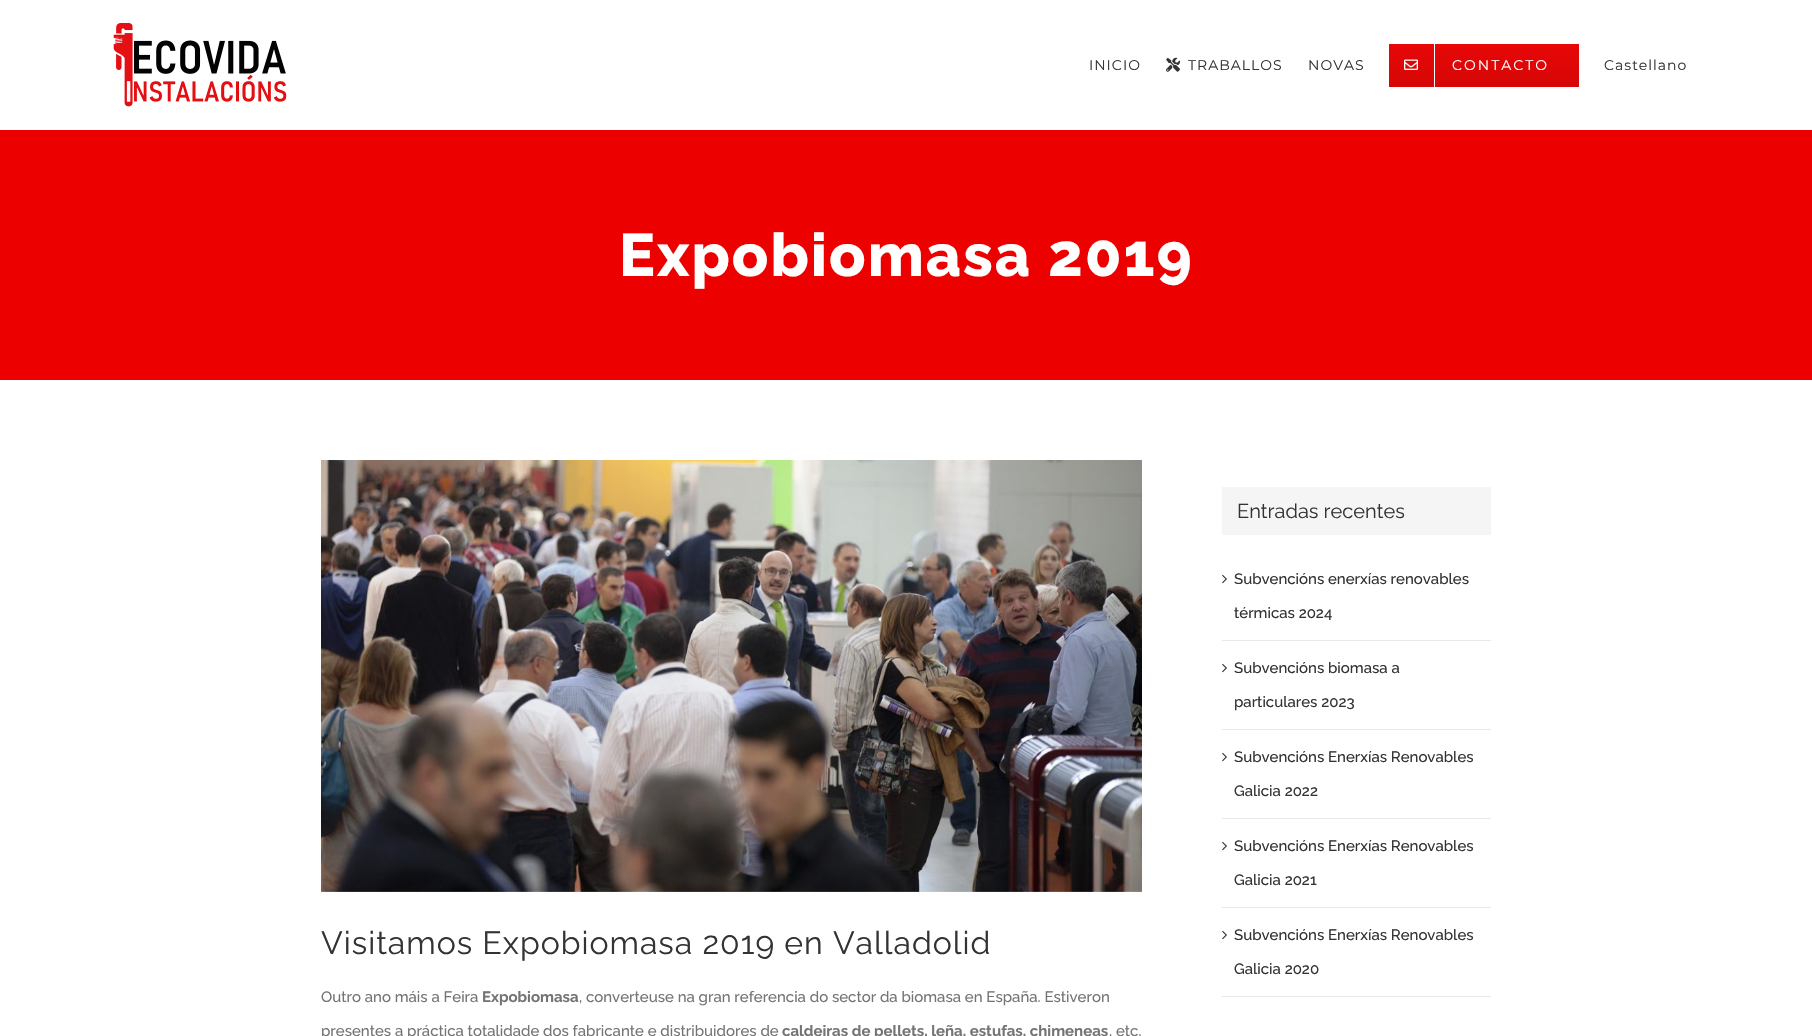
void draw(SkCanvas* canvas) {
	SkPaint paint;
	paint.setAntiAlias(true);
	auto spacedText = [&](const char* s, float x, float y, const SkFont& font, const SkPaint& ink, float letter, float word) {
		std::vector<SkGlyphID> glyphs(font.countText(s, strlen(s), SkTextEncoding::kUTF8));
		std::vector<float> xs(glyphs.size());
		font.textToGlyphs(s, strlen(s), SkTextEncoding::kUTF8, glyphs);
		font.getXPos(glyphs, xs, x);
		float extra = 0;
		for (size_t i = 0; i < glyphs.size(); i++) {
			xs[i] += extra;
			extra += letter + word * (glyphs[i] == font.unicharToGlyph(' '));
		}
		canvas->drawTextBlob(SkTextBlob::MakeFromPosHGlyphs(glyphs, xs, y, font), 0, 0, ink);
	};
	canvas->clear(0xffffffff);
	canvas->drawImageRect(SkImages::DeferredFromEncodedData(SkData::MakeFromFileName("img1.png")), SkRect::MakeXYWH(113, 22, 174, 85), SkSamplingOptions());
	SkFont f1(fontMgr->matchFamilyStyle("Montserrat", SkFontStyle::Normal()), 14);
	f1.setSubpixel(true);
	paint.setColor(0xff333333);
	spacedText("INICIO", 1089, 70, f1, paint, 1, 0);
	canvas->drawImageRect(SkImages::DeferredFromEncodedData(SkData::MakeFromFileName("img2.png")), SkRect::MakeXYWH(1166, 57, 14, 15), SkSamplingOptions());
	spacedText("TRABALLOS", 1188, 70, f1, paint, 1, 0);
	spacedText("NOVAS", 1308, 70, f1, paint, 1, 0);
	{
		const SkColor colors[] = {0xffe80707, 0xffd60707};
		const float stops[] = {0, 1};
		const SkPoint ends[] = {{1484, 44}, {1484, 87}};
		paint.setShader(SkGradientShader::MakeLinear(ends, colors, stops, 2, SkTileMode::kClamp));
		paint.setAlpha(255);
	}
	canvas->drawRect(SkRect::MakeXYWH(1389, 44, 190, 43), paint);
	paint.setShader(nullptr);
	paint.setColor(0xffffffff);
	canvas->drawRect(SkRect::MakeXYWH(1434, 44, 1, 43), paint);
	canvas->drawImageRect(SkImages::DeferredFromEncodedData(SkData::MakeFromFileName("img3.png")), SkRect::MakeXYWH(1404, 59, 14, 11), SkSamplingOptions());
	spacedText("CONTACTO", 1452, 70, f1, paint, 2, 0);
	paint.setColor(0xff333333);
	spacedText("Castellano", 1604, 70, f1, paint, 1, 0);
	paint.setColor(0xffec0000);
	canvas->drawRect(SkRect::MakeXYWH(0, 130, 1812, 250), paint);
	SkFont f2(fontMgr->matchFamilyStyle("Raleway", SkFontStyle(800, SkFontStyle::kNormal_Width, SkFontStyle::kUpright_Slant)), 60);
	f2.setSubpixel(true);
	paint.setColor(0xffffffff);
	spacedText("Expobiomasa 2019", 619, 276, f2, paint, 2, 0);
	canvas->drawImageRect(SkImages::DeferredFromEncodedData(SkData::MakeFromFileName("img4.png")), SkRect::MakeXYWH(321, 460, 821, 432), SkSamplingOptions());
	SkFont f3(fontMgr->matchFamilyStyle("Raleway", SkFontStyle::Normal()), 32);
	f3.setSubpixel(true);
	paint.setColor(0xff333333);
	spacedText("Visitamos Expobiomasa 2019 en Valladolid", 321, 954, f3, paint, 1, 0);
	SkFont f4(fontMgr->matchFamilyStyle("Raleway", SkFontStyle(500, SkFontStyle::kNormal_Width, SkFontStyle::kUpright_Slant)), 15);
	f4.setSubpixel(true);
	paint.setColor(0xff747474);
	canvas->drawString("Outro ano máis a Feira", 321, 1002, f4, paint);
	SkFont f5(fontMgr->matchFamilyStyle("Raleway", SkFontStyle::Bold()), 15);
	f5.setSubpixel(true);
	canvas->drawString("Expobiomasa", 482, 1002, f5, paint);
	canvas->drawString(", converteuse na gran referencia do sector da biomasa en España. Estiveron", 579, 1002, f4, paint);
	canvas->drawString("presentes a práctica totalidade dos fabricante e distribuidores de", 321, 1036, f4, paint);
	canvas->drawString("caldeiras de pellets, leña, estufas, chimeneas", 782, 1036, f5, paint);
	canvas->drawString(", etc.", 1109, 1036, f4, paint);
	paint.setColor(0xfff5f5f5);
	canvas->drawRect(SkRect::MakeXYWH(1222, 487, 269, 48), paint);
	SkFont f6(fontMgr->matchFamilyStyle("Raleway", SkFontStyle::Normal()), 20);
	f6.setSubpixel(true);
	paint.setColor(0xff333333);
	canvas->drawString("Entradas recentes", 1237, 518, f6, paint);
	paint.setColor(0xffeae8e8);
	canvas->drawRect(SkRect::MakeXYWH(1222, 640, 269, 1), paint);
	canvas->drawImageRect(SkImages::DeferredFromEncodedData(SkData::MakeFromFileName("img5.png")), SkRect::MakeXYWH(1222, 574, 5, 10), SkSamplingOptions());
	paint.setColor(0xff333333);
	canvas->drawString("Subvencións enerxías renovables", 1234, 584, f4, paint);
	canvas->drawString("térmicas 2024", 1234, 618, f4, paint);
	paint.setColor(0xffeae8e8);
	canvas->drawRect(SkRect::MakeXYWH(1222, 729, 269, 1), paint);
	canvas->drawImageRect(SkImages::DeferredFromEncodedData(SkData::MakeFromFileName("img5.png")), SkRect::MakeXYWH(1222, 663, 5, 10), SkSamplingOptions());
	paint.setColor(0xff333333);
	canvas->drawString("Subvencións biomasa a", 1234, 673, f4, paint);
	canvas->drawString("particulares 2023", 1234, 707, f4, paint);
	paint.setColor(0xffeae8e8);
	canvas->drawRect(SkRect::MakeXYWH(1222, 818, 269, 1), paint);
	canvas->drawImageRect(SkImages::DeferredFromEncodedData(SkData::MakeFromFileName("img5.png")), SkRect::MakeXYWH(1222, 752, 5, 10), SkSamplingOptions());
	paint.setColor(0xff333333);
	canvas->drawString("Subvencións Enerxías Renovables", 1234, 762, f4, paint);
	canvas->drawString("Galicia 2022", 1234, 796, f4, paint);
	paint.setColor(0xffeae8e8);
	canvas->drawRect(SkRect::MakeXYWH(1222, 907, 269, 1), paint);
	canvas->drawImageRect(SkImages::DeferredFromEncodedData(SkData::MakeFromFileName("img5.png")), SkRect::MakeXYWH(1222, 841, 5, 10), SkSamplingOptions());
	paint.setColor(0xff333333);
	canvas->drawString("Subvencións Enerxías Renovables", 1234, 851, f4, paint);
	canvas->drawString("Galicia 2021", 1234, 885, f4, paint);
	paint.setColor(0xffeae8e8);
	canvas->drawRect(SkRect::MakeXYWH(1222, 996, 269, 1), paint);
	canvas->drawImageRect(SkImages::DeferredFromEncodedData(SkData::MakeFromFileName("img5.png")), SkRect::MakeXYWH(1222, 930, 5, 10), SkSamplingOptions());
	paint.setColor(0xff333333);
	canvas->drawString("Subvencións Enerxías Renovables", 1234, 940, f4, paint);
	canvas->drawString("Galicia 2020", 1234, 974, f4, paint);
}
